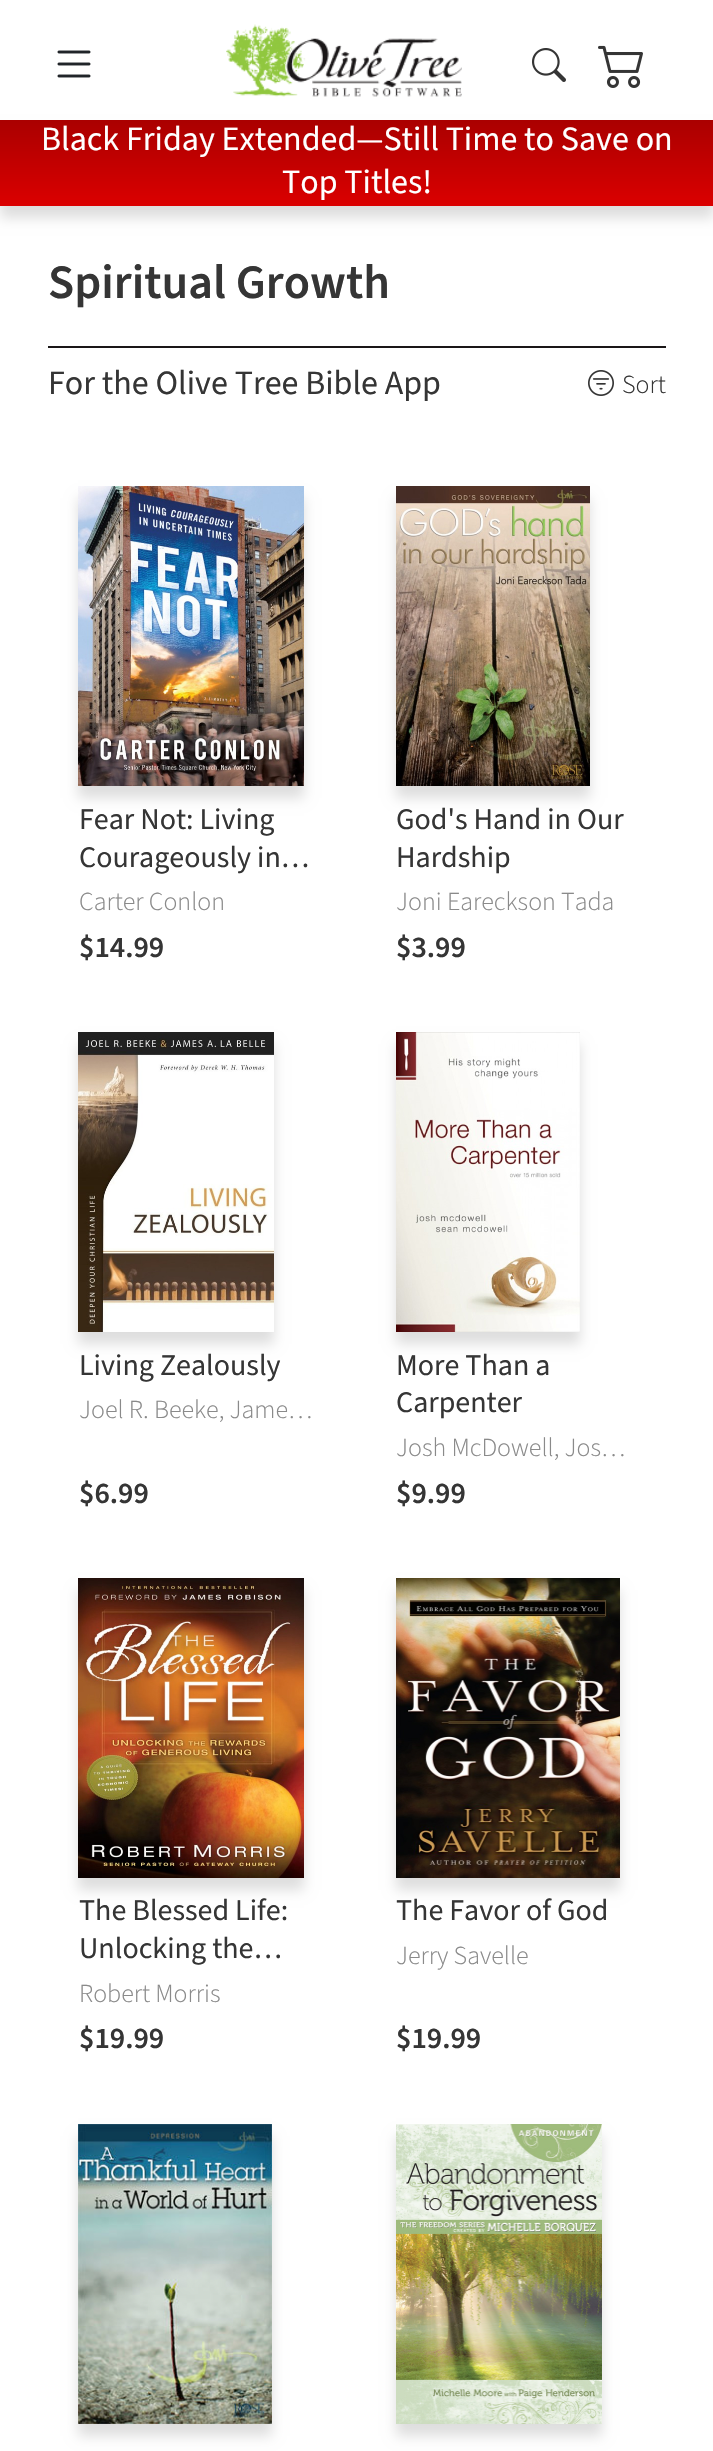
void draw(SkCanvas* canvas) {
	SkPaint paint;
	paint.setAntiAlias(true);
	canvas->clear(0xffffffff);
	canvas->drawImageRect(SkImages::DeferredFromEncodedData(SkData::MakeFromFileName("img1.png")), SkRect::MakeXYWH(57, 50, 34, 28), SkSamplingOptions());
	canvas->drawImageRect(SkImages::DeferredFromEncodedData(SkData::MakeFromFileName("img2.png")), SkRect::MakeXYWH(226, 24, 236, 73), SkSamplingOptions());
	canvas->drawImageRect(SkImages::DeferredFromEncodedData(SkData::MakeFromFileName("img3.png")), SkRect::MakeXYWH(532, 48, 34, 34), SkSamplingOptions());
	canvas->drawImageRect(SkImages::DeferredFromEncodedData(SkData::MakeFromFileName("img4.png")), SkRect::MakeXYWH(598, 45, 45, 43), SkSamplingOptions());
	paint.setColor(0x21000000);
	paint.setMaskFilter(SkMaskFilter::MakeBlur(kNormal_SkBlurStyle, 6));
	canvas->drawRect(SkRect::MakeXYWH(0, 132, 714, 86), paint);
	paint.setMaskFilter(nullptr);
	{
		const SkColor colors[] = {0xffaa0000, 0xffdb0000};
		const float stops[] = {0, 1};
		const SkPoint ends[] = {{357, 120}, {357, 206}};
		paint.setShader(SkGradientShader::MakeLinear(ends, colors, stops, 2, SkTileMode::kClamp));
		paint.setAlpha(255);
	}
	canvas->drawRect(SkRect::MakeXYWH(0, 120, 713, 86), paint);
	SkFont f1(fontMgr->matchFamilyStyle("Source Sans 3", SkFontStyle::Normal()), 34);
	f1.setSubpixel(true);
	paint.setShader(nullptr);
	paint.setColor(0xffffffff);
	canvas->drawString("Black Friday Extended—Still Time to Save on", 41, 150, f1, paint);
	canvas->drawString("Top Titles!", 282, 193, f1, paint);
	SkFont f2(fontMgr->matchFamilyStyle("Source Sans 3", SkFontStyle(600, SkFontStyle::kNormal_Width, SkFontStyle::kUpright_Slant)), 48);
	f2.setSubpixel(true);
	paint.setColor(0xff353535);
	canvas->drawString("Spiritual Growth", 48, 298, f2, paint);
	paint.setColor(0xff1a1718);
	canvas->drawRect(SkRect::MakeXYWH(48, 346, 618, 2), paint);
	paint.setColor(0xff353535);
	canvas->drawString("For the Olive Tree Bible App", 48, 394, f1, paint);
	canvas->drawImageRect(SkImages::DeferredFromEncodedData(SkData::MakeFromFileName("img5.png")), SkRect::MakeXYWH(588, 370, 26, 26), SkSamplingOptions());
	SkFont f3(fontMgr->matchFamilyStyle("Source Sans 3", SkFontStyle(300, SkFontStyle::kNormal_Width, SkFontStyle::kUpright_Slant)), 26);
	f3.setSubpixel(true);
	canvas->drawString("Sort", 622, 393, f3, paint);
	paint.setColor(0x21000000);
	paint.setMaskFilter(SkMaskFilter::MakeBlur(kNormal_SkBlurStyle, 6));
	canvas->drawRect(SkRect::MakeXYWH(78, 498, 226, 300), paint);
	paint.setMaskFilter(nullptr);
	canvas->drawImageRect(SkImages::DeferredFromEncodedData(SkData::MakeFromFileName("img6.png")), SkRect::MakeXYWH(78, 486, 226, 300), SkSamplingOptions());
	SkFont f4(fontMgr->matchFamilyStyle("Source Sans 3", SkFontStyle::Normal()), 30);
	f4.setSubpixel(true);
	paint.setColor(0xff353535);
	canvas->drawString("Fear Not: Living", 79, 829, f4, paint);
	canvas->drawString("Courageously in…", 79, 867, f4, paint);
	paint.setColor(0xff8a8a8a);
	canvas->drawString("Carter Conlon", 79, 910, f3, paint);
	SkFont f5(fontMgr->matchFamilyStyle("Source Sans 3", SkFontStyle(600, SkFontStyle::kNormal_Width, SkFontStyle::kUpright_Slant)), 30);
	f5.setSubpixel(true);
	paint.setColor(0xff353535);
	canvas->drawString("$14.99", 79, 957, f5, paint);
	paint.setColor(0x21000000);
	paint.setMaskFilter(SkMaskFilter::MakeBlur(kNormal_SkBlurStyle, 6));
	canvas->drawRect(SkRect::MakeXYWH(396, 498, 194, 300), paint);
	paint.setMaskFilter(nullptr);
	canvas->drawImageRect(SkImages::DeferredFromEncodedData(SkData::MakeFromFileName("img7.png")), SkRect::MakeXYWH(396, 486, 194, 300), SkSamplingOptions());
	paint.setColor(0xff353535);
	canvas->drawString("God's Hand in Our", 396, 829, f4, paint);
	canvas->drawString("Hardship", 396, 867, f4, paint);
	paint.setColor(0xff8a8a8a);
	canvas->drawString("Joni Eareckson Tada", 396, 910, f3, paint);
	paint.setColor(0xff353535);
	canvas->drawString("$3.99", 396, 957, f5, paint);
	paint.setColor(0x21000000);
	paint.setMaskFilter(SkMaskFilter::MakeBlur(kNormal_SkBlurStyle, 6));
	canvas->drawRect(SkRect::MakeXYWH(78, 1044, 196, 300), paint);
	paint.setMaskFilter(nullptr);
	canvas->drawImageRect(SkImages::DeferredFromEncodedData(SkData::MakeFromFileName("img8.png")), SkRect::MakeXYWH(78, 1032, 196, 300), SkSamplingOptions());
	paint.setColor(0xff353535);
	canvas->drawString("Living Zealously", 79, 1375, f4, paint);
	paint.setColor(0xff8a8a8a);
	canvas->drawString("Joel R. Beeke, Jame…", 79, 1418, f3, paint);
	paint.setColor(0xff353535);
	canvas->drawString("$6.99", 79, 1503, f5, paint);
	paint.setColor(0x21000000);
	paint.setMaskFilter(SkMaskFilter::MakeBlur(kNormal_SkBlurStyle, 6));
	canvas->drawRect(SkRect::MakeXYWH(396, 1044, 184, 300), paint);
	paint.setMaskFilter(nullptr);
	canvas->drawImageRect(SkImages::DeferredFromEncodedData(SkData::MakeFromFileName("img9.png")), SkRect::MakeXYWH(396, 1032, 184, 300), SkSamplingOptions());
	paint.setColor(0xff353535);
	canvas->drawString("More Than a", 396, 1375, f4, paint);
	canvas->drawString("Carpenter", 396, 1412, f4, paint);
	paint.setColor(0xff8a8a8a);
	canvas->drawString("Josh McDowell, Jos…", 396, 1456, f3, paint);
	paint.setColor(0xff353535);
	canvas->drawString("$9.99", 396, 1503, f5, paint);
	paint.setColor(0x21000000);
	paint.setMaskFilter(SkMaskFilter::MakeBlur(kNormal_SkBlurStyle, 6));
	canvas->drawRect(SkRect::MakeXYWH(78, 1590, 226, 300), paint);
	paint.setMaskFilter(nullptr);
	canvas->drawImageRect(SkImages::DeferredFromEncodedData(SkData::MakeFromFileName("img10.png")), SkRect::MakeXYWH(78, 1578, 226, 300), SkSamplingOptions());
	paint.setColor(0xff353535);
	canvas->drawString("The Blessed Life:", 79, 1920, f4, paint);
	canvas->drawString("Unlocking the…", 79, 1958, f4, paint);
	paint.setColor(0xff8a8a8a);
	canvas->drawString("Robert Morris", 79, 2002, f3, paint);
	paint.setColor(0xff353535);
	canvas->drawString("$19.99", 79, 2048, f5, paint);
	paint.setColor(0x21000000);
	paint.setMaskFilter(SkMaskFilter::MakeBlur(kNormal_SkBlurStyle, 6));
	canvas->drawRect(SkRect::MakeXYWH(396, 1590, 224, 300), paint);
	paint.setMaskFilter(nullptr);
	canvas->drawImageRect(SkImages::DeferredFromEncodedData(SkData::MakeFromFileName("img11.png")), SkRect::MakeXYWH(396, 1578, 224, 300), SkSamplingOptions());
	paint.setColor(0xff353535);
	canvas->drawString("The Favor of God", 396, 1920, f4, paint);
	paint.setColor(0xff8a8a8a);
	canvas->drawString("Jerry Savelle", 396, 1964, f3, paint);
	paint.setColor(0xff353535);
	canvas->drawString("$19.99", 396, 2048, f5, paint);
	paint.setColor(0x21000000);
	paint.setMaskFilter(SkMaskFilter::MakeBlur(kNormal_SkBlurStyle, 6));
	canvas->drawRect(SkRect::MakeXYWH(78, 2136, 194, 300), paint);
	paint.setMaskFilter(nullptr);
	canvas->drawImageRect(SkImages::DeferredFromEncodedData(SkData::MakeFromFileName("img12.png")), SkRect::MakeXYWH(78, 2124, 194, 300), SkSamplingOptions());
	paint.setMaskFilter(SkMaskFilter::MakeBlur(kNormal_SkBlurStyle, 6));
	canvas->drawRect(SkRect::MakeXYWH(396, 2136, 206, 300), paint);
	paint.setMaskFilter(nullptr);
	canvas->drawImageRect(SkImages::DeferredFromEncodedData(SkData::MakeFromFileName("img13.png")), SkRect::MakeXYWH(396, 2124, 206, 300), SkSamplingOptions());
}
